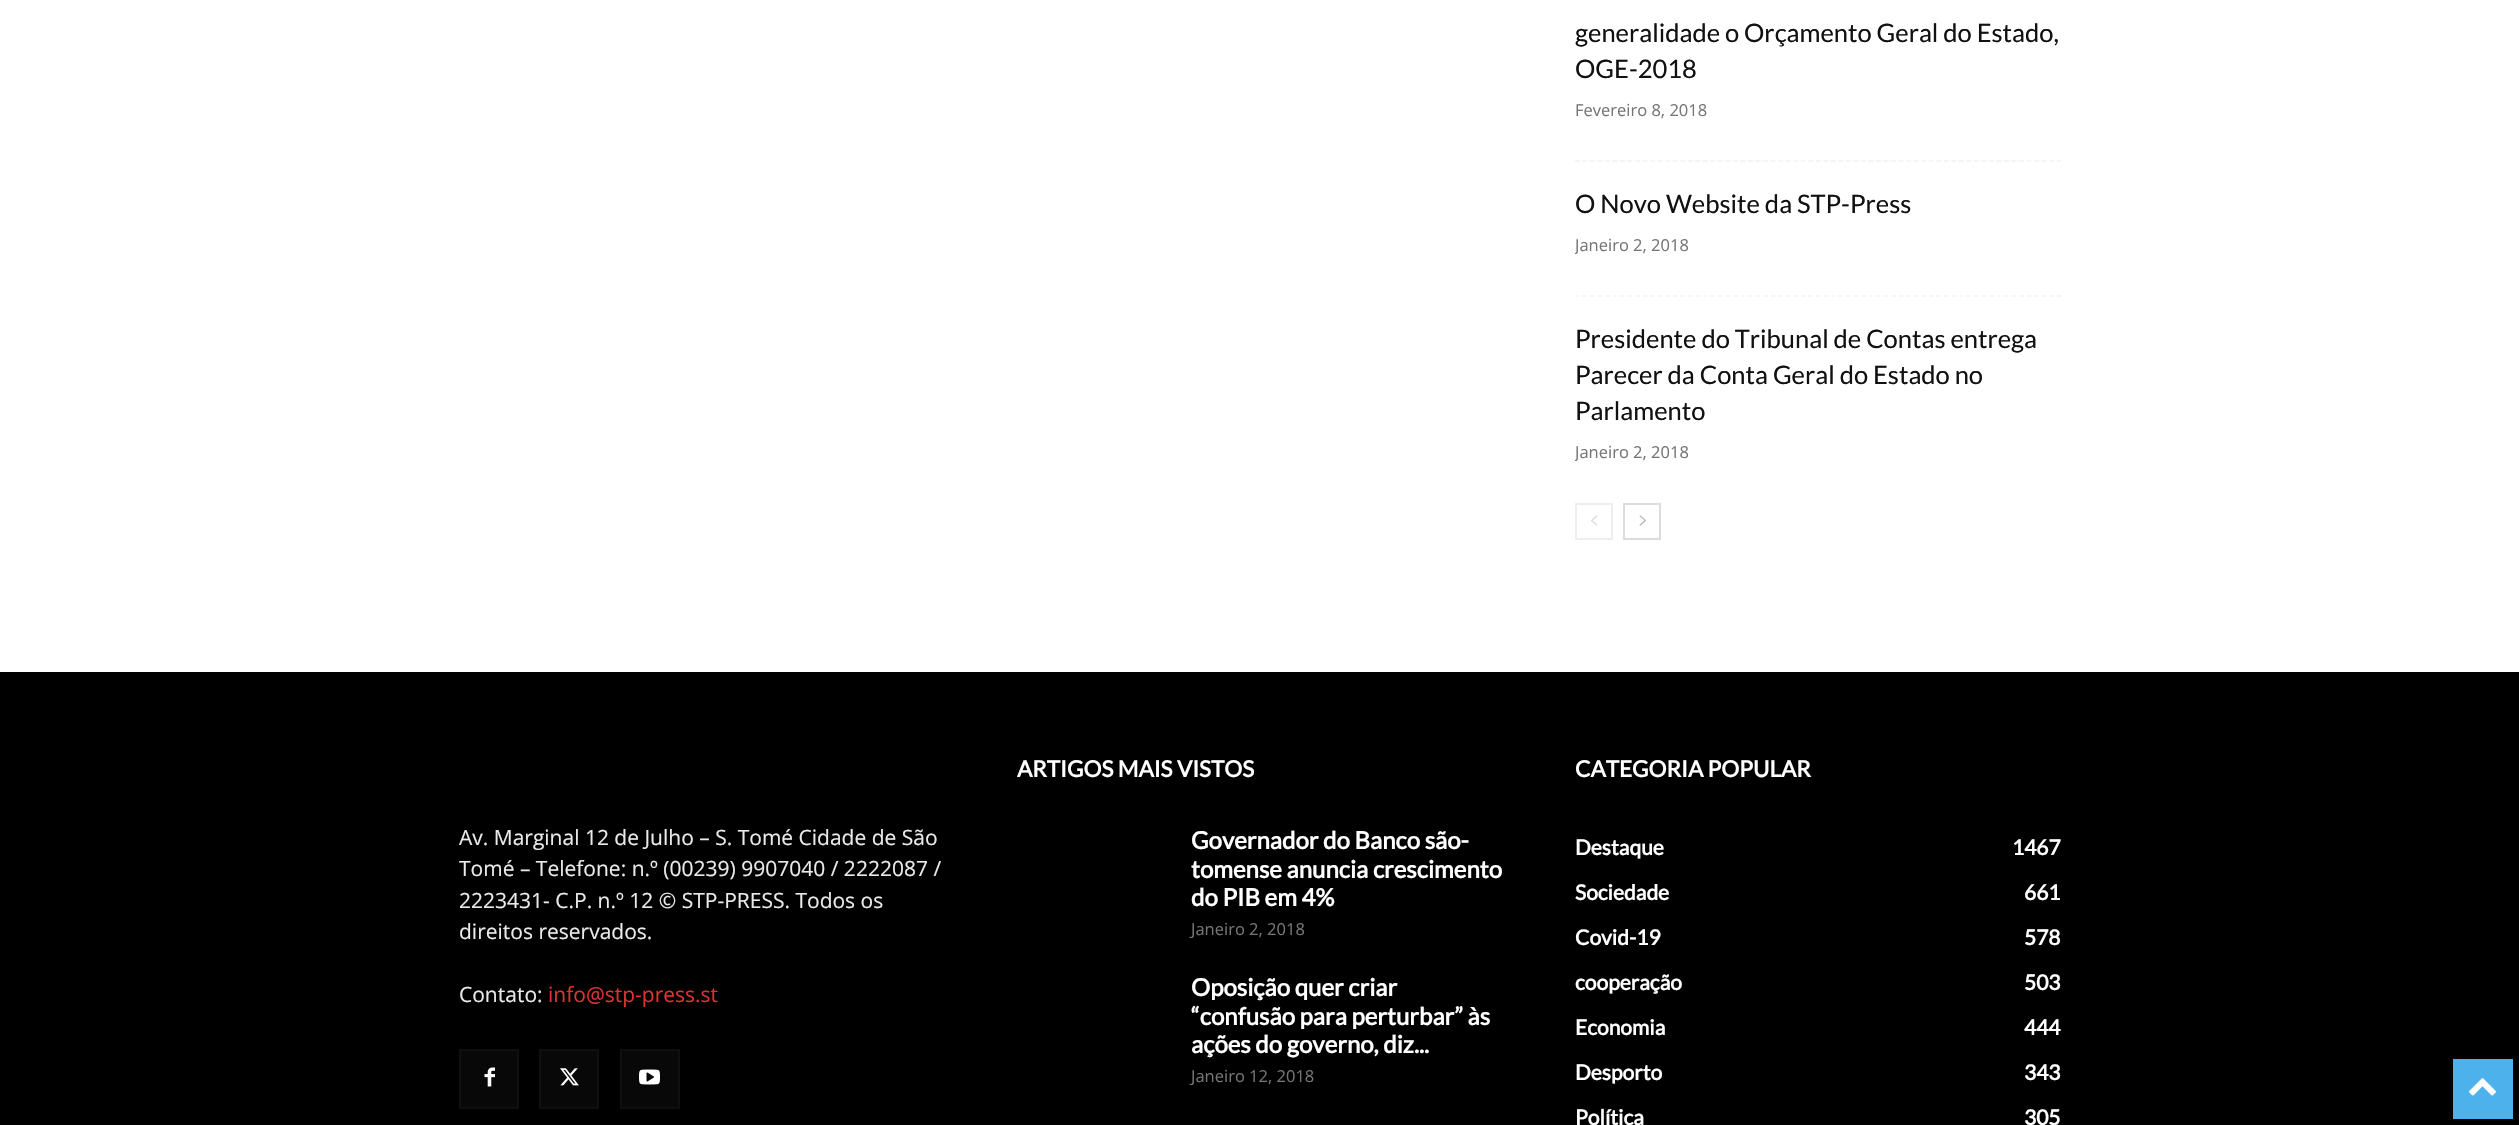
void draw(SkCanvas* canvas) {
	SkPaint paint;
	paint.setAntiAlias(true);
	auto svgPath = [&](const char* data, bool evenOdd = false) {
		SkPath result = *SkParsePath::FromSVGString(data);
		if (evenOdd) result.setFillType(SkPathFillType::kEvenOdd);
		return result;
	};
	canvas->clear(0xffffffff);
	paint.setStroke(true);
	paint.setStrokeWidth(1.5);
	paint.setColor(0xfff2f2f2);
	paint.setPathEffect(SkDashPathEffect::Make({{4.5f, 3.03f}}, 0));
	canvas->drawPath(svgPath("M1575 161H2061"), paint);
	paint.setPathEffect(nullptr);
	SkFont f1(fontMgr->matchFamilyStyle("Lato", SkFontStyle::Normal()), 25.5);
	f1.setSubpixel(true);
	paint.setStroke(false);
	paint.setColor(0xff111111);
	canvas->drawString("generalidade o Orçamento Geral do Estado,", 1575, 42, f1, paint);
	canvas->drawString("OGE-2018", 1575, 78, f1, paint);
	SkFont f2(fontMgr->matchFamilyStyle("Open Sans", SkFontStyle::Normal()), 16.5);
	f2.setSubpixel(true);
	paint.setColor(0xff767676);
	canvas->drawString("Fevereiro 8, 2018", 1575, 116, f2, paint);
	paint.setStroke(true);
	paint.setColor(0xfff2f2f2);
	paint.setPathEffect(SkDashPathEffect::Make({{4.5f, 3.03f}}, 0));
	canvas->drawPath(svgPath("M1575 296H2061"), paint);
	paint.setPathEffect(nullptr);
	paint.setStroke(false);
	paint.setColor(0xff111111);
	canvas->drawString("O Novo Website da STP-Press", 1575, 213, f1, paint);
	canvas->save();
	canvas->clipRect(SkRect::MakeXYWH(1575, 0, 486, 540));
	paint.setColor(0xff767676);
	canvas->drawString("Janeiro 2, 2018", 1575, 251, f2, paint);
	canvas->restore();
	paint.setColor(0xff111111);
	canvas->drawString("Presidente do Tribunal de Contas entrega", 1575, 348, f1, paint);
	canvas->drawString("Parecer da Conta Geral do Estado no", 1575, 384, f1, paint);
	canvas->drawString("Parlamento", 1575, 420, f1, paint);
	canvas->save();
	canvas->clipRect(SkRect::MakeXYWH(1575, 0, 486, 540));
	paint.setColor(0xff767676);
	canvas->drawString("Janeiro 2, 2018", 1575, 458, f2, paint);
	canvas->restore();
	paint.setStroke(true);
	paint.setStrokeWidth(2);
	paint.setColor(0xffeeeeee);
	canvas->drawRect(SkRect::MakeXYWH(1576, 504, 36, 35), paint);
	canvas->drawImageRect(SkImages::DeferredFromEncodedData(SkData::MakeFromFileName("img1.png")), SkRect::MakeXYWH(1591, 515, 7, 11), SkSamplingOptions());
	paint.setColor(0xffdcdcdc);
	canvas->drawRect(SkRect::MakeXYWH(1624, 504, 36, 35), paint);
	canvas->drawImageRect(SkImages::DeferredFromEncodedData(SkData::MakeFromFileName("img2.png")), SkRect::MakeXYWH(1639, 515, 7, 11), SkSamplingOptions());
	paint.setStroke(false);
	paint.setColor(0xff000000);
	canvas->drawRect(SkRect::MakeXYWH(0, 672, 2519, 453), paint);
	SkFont f3(fontMgr->matchFamilyStyle("Open Sans", SkFontStyle::Normal()), 21);
	f3.setSubpixel(true);
	paint.setColor(0xffeaeaea);
	canvas->drawString("Av. Marginal 12 de Julho – S. Tomé Cidade de São", 459, 845, f3, paint);
	canvas->drawString("Tomé – Telefone: n.º (00239) 9907040 / 2222087 /", 459, 876, f3, paint);
	canvas->drawString("2223431- C.P. n.º 12 © STP-PRESS. Todos os", 459, 908, f3, paint);
	canvas->drawString("direitos reservados.", 459, 939, f3, paint);
	canvas->drawString("Contato:", 459, 1002, f3, paint);
	paint.setColor(0xffdd3333);
	canvas->drawString("info@stp-press.st", 548, 1002, f3, paint);
	paint.setColor(0xff080808);
	canvas->drawRect(SkRect::MakeXYWH(461, 1051, 56, 56), paint);
	canvas->drawImageRect(SkImages::DeferredFromEncodedData(SkData::MakeFromFileName("img3.png")), SkRect::MakeXYWH(484, 1067, 11, 20), SkSamplingOptions());
	paint.setStroke(true);
	paint.setColor(0xff0f0f0f);
	canvas->drawRect(SkRect::MakeXYWH(460, 1050, 58, 58), paint);
	paint.setStroke(false);
	paint.setColor(0xff080808);
	canvas->drawRect(SkRect::MakeXYWH(541, 1051, 56, 56), paint);
	canvas->drawImageRect(SkImages::DeferredFromEncodedData(SkData::MakeFromFileName("img4.png")), SkRect::MakeXYWH(560, 1068, 19, 18), SkSamplingOptions());
	paint.setStroke(true);
	paint.setColor(0xff0f0f0f);
	canvas->drawRect(SkRect::MakeXYWH(540, 1050, 58, 58), paint);
	paint.setStroke(false);
	paint.setColor(0xff080808);
	canvas->drawRect(SkRect::MakeXYWH(622, 1051, 56, 56), paint);
	canvas->drawImageRect(SkImages::DeferredFromEncodedData(SkData::MakeFromFileName("img5.png")), SkRect::MakeXYWH(639, 1069, 21, 16), SkSamplingOptions());
	paint.setStroke(true);
	paint.setColor(0xff0f0f0f);
	canvas->drawRect(SkRect::MakeXYWH(621, 1050, 58, 58), paint);
	SkFont f4(fontMgr->matchFamilyStyle("Lato", SkFontStyle::Bold()), 22.5);
	f4.setSubpixel(true);
	paint.setStroke(false);
	paint.setColor(0xffffffff);
	canvas->drawString("ARTIGOS MAIS VISTOS", 1017, 777, f4, paint);
	SkFont f5(fontMgr->matchFamilyStyle("Lato", SkFontStyle::Bold()), 24);
	f5.setSubpixel(true);
	canvas->drawString("Governador do Banco são-", 1191, 849, f5, paint);
	canvas->drawString("tomense anuncia crescimento", 1191, 878, f5, paint);
	canvas->drawString("do PIB em 4%", 1191, 906, f5, paint);
	paint.setColor(0xff767676);
	canvas->drawString("Janeiro 2, 2018", 1191, 935, f2, paint);
	paint.setColor(0xffffffff);
	canvas->drawString("Oposição quer criar", 1191, 996, f5, paint);
	canvas->drawString("“confusão para perturbar” às", 1191, 1025, f5, paint);
	canvas->drawString("ações do governo, diz...", 1191, 1053, f5, paint);
	paint.setColor(0xff767676);
	canvas->drawString("Janeiro 12, 2018", 1191, 1082, f2, paint);
	paint.setColor(0xffffffff);
	canvas->drawString("CATEGORIA POPULAR", 1575, 777, f4, paint);
	SkFont f6(fontMgr->matchFamilyStyle("Lato", SkFontStyle::Bold()), 21);
	f6.setSubpixel(true);
	canvas->drawString("Destaque", 1575, 855, f6, paint);
	canvas->drawString("1467", 2012, 855, f6, paint);
	canvas->drawString("Sociedade", 1575, 900, f6, paint);
	canvas->drawString("661", 2024, 900, f6, paint);
	canvas->drawString("Covid-19", 1575, 945, f6, paint);
	canvas->drawString("578", 2024, 945, f6, paint);
	canvas->drawString("cooperação", 1575, 990, f6, paint);
	canvas->drawString("503", 2024, 990, f6, paint);
	canvas->drawString("Economia", 1575, 1035, f6, paint);
	canvas->drawString("444", 2024, 1035, f6, paint);
	canvas->drawString("Desporto", 1575, 1080, f6, paint);
	canvas->drawString("343", 2024, 1080, f6, paint);
	canvas->drawString("Política", 1575, 1125, f6, paint);
	canvas->drawString("305", 2024, 1125, f6, paint);
	paint.setColor(0xff4db2ec);
	canvas->drawRect(SkRect::MakeXYWH(2453, 1059, 60, 60), paint);
	canvas->drawImageRect(SkImages::DeferredFromEncodedData(SkData::MakeFromFileName("img6.png")), SkRect::MakeXYWH(2469, 1078, 27, 18), SkSamplingOptions());
}
